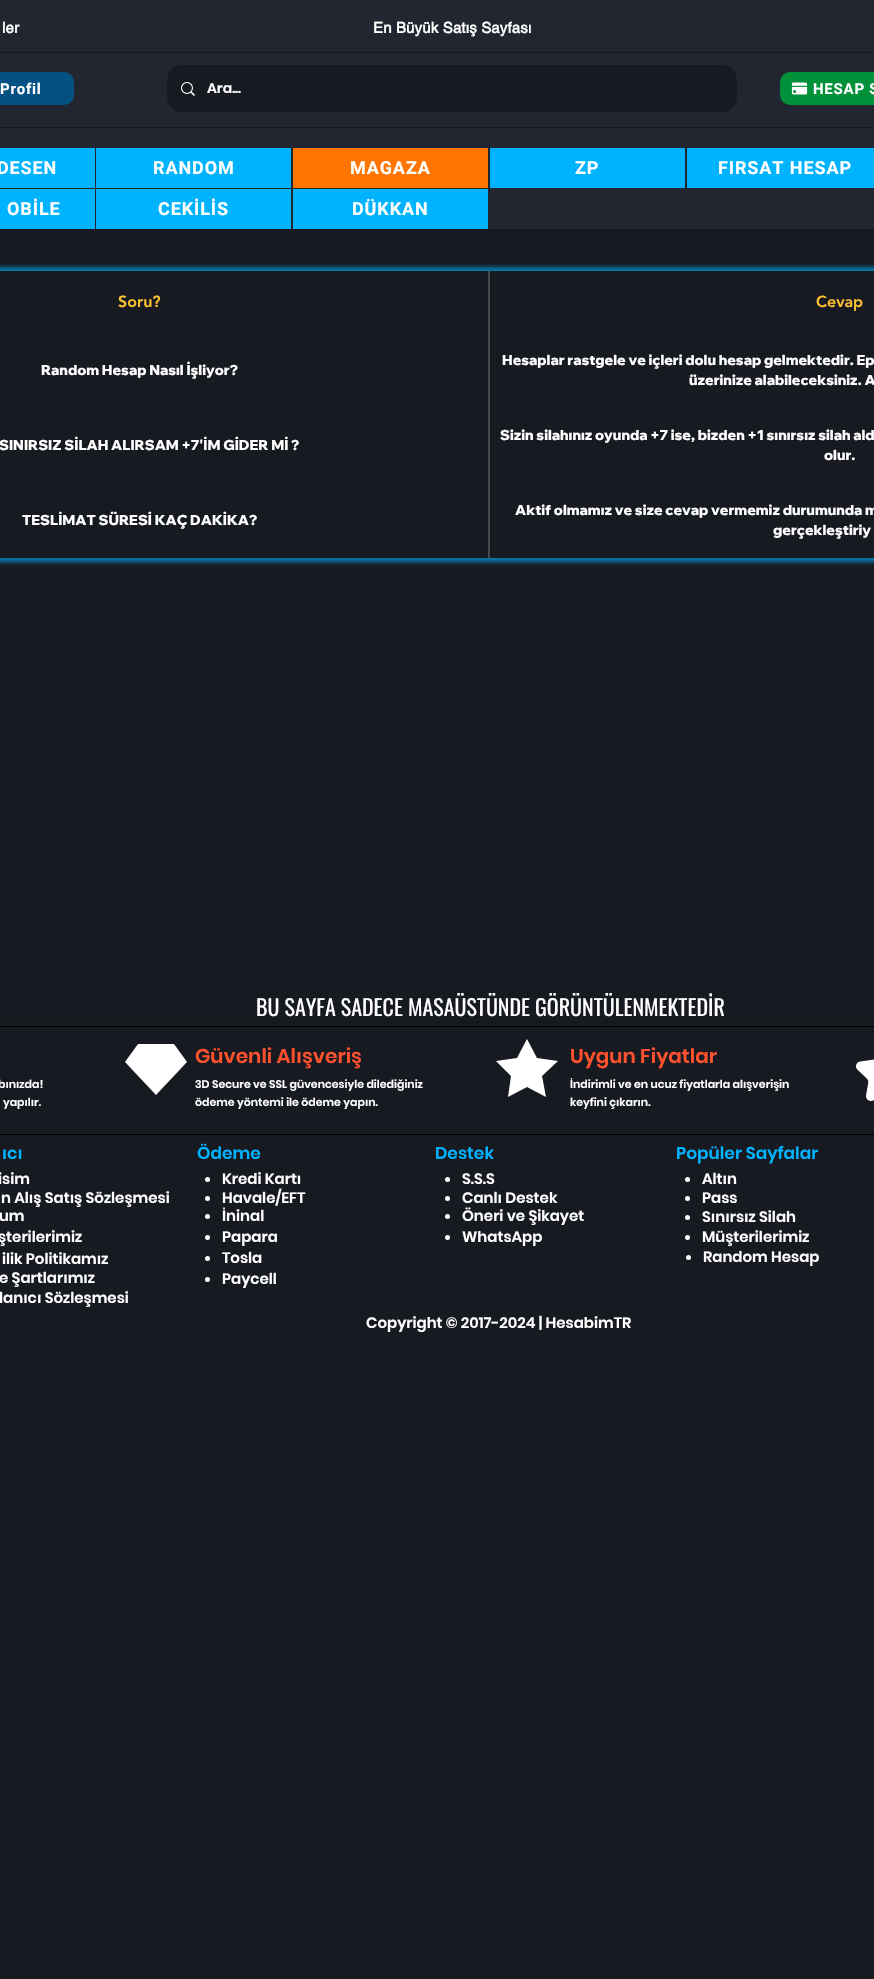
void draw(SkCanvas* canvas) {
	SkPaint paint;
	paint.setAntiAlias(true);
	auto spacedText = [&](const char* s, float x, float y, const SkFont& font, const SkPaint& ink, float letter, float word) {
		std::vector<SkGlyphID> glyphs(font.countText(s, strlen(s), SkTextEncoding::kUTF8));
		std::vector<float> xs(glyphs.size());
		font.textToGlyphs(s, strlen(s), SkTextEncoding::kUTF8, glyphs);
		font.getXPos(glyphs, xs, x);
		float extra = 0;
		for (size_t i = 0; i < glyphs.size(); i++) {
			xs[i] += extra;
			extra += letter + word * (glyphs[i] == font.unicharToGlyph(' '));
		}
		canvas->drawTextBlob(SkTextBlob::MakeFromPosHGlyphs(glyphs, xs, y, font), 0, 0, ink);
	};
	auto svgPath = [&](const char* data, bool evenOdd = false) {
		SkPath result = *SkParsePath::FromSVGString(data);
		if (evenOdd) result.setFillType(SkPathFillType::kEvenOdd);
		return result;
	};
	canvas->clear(0xff171a21);
	paint.setColor(0xff212630);
	canvas->drawRect(SkRect::MakeXYWH(0, 0, 874, 229), paint);
	SkFont f1(fontMgr->matchFamilyStyle("helvetica", SkFontStyle::Bold()), 15);
	f1.setSubpixel(true);
	paint.setColor(0xffffffff);
	spacedText("ler", 2, 33, f1, paint, 0.15, 0);
	spacedText("En Büyük Satış Sayfası", 373, 33, f1, paint, 0.15, 0);
	paint.setColor(0xff171a21);
	canvas->drawRect(SkRect::MakeXYWH(0, 52, 874, 1), paint);
	paint.setColor(0xff045184);
	canvas->drawRoundRect(SkRect::MakeXYWH(-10, 72, 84, 33), 10, 10, paint);
	SkFont f2(fontMgr->matchFamilyStyle("Heebo", SkFontStyle::Bold()), 15);
	f2.setSubpixel(true);
	paint.setColor(0xffffffff);
	spacedText("Profil", 0, 94, f2, paint, 0.75, 0);
	paint.setColor(0xff171a21);
	canvas->drawRoundRect(SkRect::MakeXYWH(167, 65, 570, 47), 15, 15, paint);
	canvas->drawImageRect(SkImages::DeferredFromEncodedData(SkData::MakeFromFileName("img1.png")), SkRect::MakeXYWH(181, 82, 14, 14), SkSamplingOptions());
	SkFont f3(fontMgr->matchFamilyStyle("Poppins", SkFontStyle(600, SkFontStyle::kNormal_Width, SkFontStyle::kUpright_Slant)), 14);
	f3.setSubpixel(true);
	paint.setColor(0xffffffff);
	canvas->drawString("Ara...", 207, 93, f3, paint);
	paint.setColor(0xff009039);
	canvas->drawRoundRect(SkRect::MakeXYWH(780, 72, 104, 33), 10, 10, paint);
	canvas->drawImageRect(SkImages::DeferredFromEncodedData(SkData::MakeFromFileName("img2.png")), SkRect::MakeXYWH(791, 82, 17, 13), SkSamplingOptions());
	paint.setColor(0xffffffff);
	spacedText("HESAP S", 813, 94, f2, paint, 0.75, 0);
	paint.setColor(0xff171a21);
	canvas->drawRect(SkRect::MakeXYWH(0, 127, 874, 1), paint);
	paint.setColor(0xff00b3ff);
	canvas->drawRect(SkRect::MakeXYWH(0, 148, 95, 40), paint);
	SkFont f4(fontMgr->matchFamilyStyle("Heebo", SkFontStyle::Bold()), 18);
	f4.setSubpixel(true);
	paint.setColor(0xffffffff);
	spacedText("DESEN", -3, 174, f4, paint, 0.9, 0);
	paint.setColor(0xff00b3ff);
	canvas->drawRect(SkRect::MakeXYWH(96, 148, 195, 40), paint);
	paint.setColor(0xffffffff);
	spacedText("RANDOM", 153, 174, f4, paint, 0.9, 0);
	paint.setColor(0xffff7500);
	canvas->drawRect(SkRect::MakeXYWH(293, 148, 195, 40), paint);
	paint.setColor(0xffffffff);
	spacedText("MAGAZA", 350, 174, f4, paint, 0.9, 0);
	paint.setColor(0xff00b3ff);
	canvas->drawRect(SkRect::MakeXYWH(490, 148, 195, 40), paint);
	paint.setColor(0xffffffff);
	spacedText("ZP", 575, 174, f4, paint, 0.9, 0);
	paint.setColor(0xff00b3ff);
	canvas->drawRect(SkRect::MakeXYWH(687, 148, 187, 40), paint);
	paint.setColor(0xffffffff);
	spacedText("FIRSAT HESAP", 718, 174, f4, paint, 0.9, 0);
	paint.setColor(0xff00b3ff);
	canvas->drawRect(SkRect::MakeXYWH(0, 189, 95, 40), paint);
	paint.setColor(0xffffffff);
	spacedText("OBİLE", 7, 215, f4, paint, 0.9, 0);
	paint.setColor(0xff00b3ff);
	canvas->drawRect(SkRect::MakeXYWH(96, 189, 195, 40), paint);
	paint.setColor(0xffffffff);
	spacedText("CEKİLİS", 158, 215, f4, paint, 0.9, 0);
	paint.setColor(0xff00b3ff);
	canvas->drawRect(SkRect::MakeXYWH(293, 189, 195, 40), paint);
	paint.setColor(0xffffffff);
	spacedText("DÜKKAN", 352, 215, f4, paint, 0.9, 0);
	canvas->save();
	canvas->clipPath(svgPath("M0 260H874V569H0ZM-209 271H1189V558H-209Z", true), true);
	paint.setColor(0x9c00b3ff);
	paint.setMaskFilter(SkMaskFilter::MakeBlur(kNormal_SkBlurStyle, 2));
	canvas->drawRect(SkRect::MakeXYWH(-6, 267, 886, 295), paint);
	paint.setMaskFilter(nullptr);
	canvas->restore();
	paint.setColor(0xff45484d);
	canvas->drawRect(SkRect::MakeXYWH(488, 271, 2, 287), paint);
	SkFont f5(fontMgr->matchFamilyStyle("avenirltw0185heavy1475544", SkFontStyle(900, SkFontStyle::kNormal_Width, SkFontStyle::kUpright_Slant)), 16);
	f5.setSubpixel(true);
	paint.setColor(0xffffc233);
	canvas->drawString("Soru?", 118, 307, f5, paint);
	canvas->drawString("Cevap", 816, 307, f5, paint);
	SkFont f6(fontMgr->matchFamilyStyle("Wix Madefor Display", SkFontStyle(800, SkFontStyle::kNormal_Width, SkFontStyle::kUpright_Slant)), 14);
	f6.setSubpixel(true);
	paint.setColor(0xffffffff);
	canvas->drawString("Random Hesap Nasıl İşliyor?", 41, 375, f6, paint);
	canvas->drawString("Hesaplar rastgele ve içleri dolu hesap gelmektedir. Ep", 502, 365, f6, paint);
	canvas->drawString("üzerinize alabileceksiniz. A", 689, 385, f6, paint);
	canvas->drawString("SINIRSIZ SİLAH ALIRSAM +7'İM GİDER Mİ ?", -1, 450, f6, paint);
	canvas->drawString("Sizin silahınız oyunda +7 ise, bizden +1 sınırsız silah ald", 500, 440, f6, paint);
	canvas->drawString("olur.", 824, 460, f6, paint);
	canvas->drawString("TESLİMAT SÜRESİ KAÇ DAKİKA?", 22, 525, f6, paint);
	canvas->drawString("Aktif olmamız ve size cevap vermemiz durumunda m", 515, 515, f6, paint);
	canvas->drawString("gerçekleştiriy", 773, 535, f6, paint);
	SkFont f7(fontMgr->matchFamilyStyle("Oswald", SkFontStyle::Normal()), 22);
	f7.setSubpixel(true);
	canvas->drawString("BU SAYFA SADECE MASAÜSTÜNDE GÖRÜNTÜLENMEKTEDİR", 256, 1016, f7, paint);
	paint.setColor(0xff14161c);
	canvas->drawRect(SkRect::MakeXYWH(0, 1022, 874, 1), paint);
	paint.setColor(0xff000000);
	canvas->drawRect(SkRect::MakeXYWH(0, 1026, 874, 1), paint);
	paint.setColor(0xffffffff);
	canvas->drawPath(svgPath("M174 1044H138L125 1062L156 1095L187 1062Z"), paint);
	SkFont f8(fontMgr->matchFamilyStyle("Poppins", SkFontStyle(600, SkFontStyle::kNormal_Width, SkFontStyle::kUpright_Slant)), 20);
	f8.setSubpixel(true);
	paint.setColor(0xffff512e);
	canvas->drawString("Güvenli Alışveriş", 195, 1063, f8, paint);
	paint.setColor(0xffffffff);
	canvas->drawPath(svgPath("M527 1039L537 1058L558 1061L542 1076L546 1097L527 1087L508 1097L511 1076L496 1061L517 1058Z"), paint);
	paint.setColor(0xffff512e);
	canvas->drawString("Uygun Fiyatlar", 570, 1063, f8, paint);
	canvas->drawImageRect(SkImages::DeferredFromEncodedData(SkData::MakeFromFileName("img3.png")), SkRect::MakeXYWH(856, 1059, 18, 42), SkSamplingOptions());
	SkFont f9(fontMgr->matchFamilyStyle("Poppins", SkFontStyle(600, SkFontStyle::kNormal_Width, SkFontStyle::kUpright_Slant)), 11);
	f9.setSubpixel(true);
	paint.setColor(0xffffffff);
	canvas->drawString("bınızda!", -2, 1088, f9, paint);
	canvas->drawString("yapılır.", 3, 1106, f9, paint);
	canvas->drawString("3D Secure ve SSL güvencesiyle dilediğiniz", 195, 1088, f9, paint);
	canvas->drawString("ödeme yöntemi ile ödeme yapın.", 195, 1106, f9, paint);
	canvas->drawString("İndirimli ve en ucuz fiyatlarla alışverişin", 570, 1088, f9, paint);
	canvas->drawString("keyfini çıkarın.", 570, 1106, f9, paint);
	paint.setColor(0xff000000);
	canvas->drawRect(SkRect::MakeXYWH(0, 1134, 874, 1), paint);
	SkFont f10(fontMgr->matchFamilyStyle("Poppins", SkFontStyle(600, SkFontStyle::kNormal_Width, SkFontStyle::kUpright_Slant)), 17);
	f10.setSubpixel(true);
	paint.setColor(0xff00b3ff);
	canvas->drawString("ıcı", 2, 1159, f10, paint);
	canvas->drawString("Ödeme", 197, 1159, f10, paint);
	canvas->drawString("Destek", 435, 1159, f10, paint);
	canvas->drawString("Popüler Sayfalar", 676, 1159, f10, paint);
	SkFont f11(fontMgr->matchFamilyStyle("Poppins", SkFontStyle(600, SkFontStyle::kNormal_Width, SkFontStyle::kUpright_Slant)), 15);
	f11.setSubpixel(true);
	paint.setColor(0xffffffff);
	canvas->drawString("isim", -2, 1184, f11, paint);
	canvas->drawCircle(207.5, 1179.5, 2.5, paint);
	canvas->drawString("Kredi Kartı", 222, 1184, f11, paint);
	canvas->drawCircle(447.5, 1179.5, 2.5, paint);
	canvas->drawString("S.S.S", 462, 1184, f11, paint);
	canvas->drawCircle(687.5, 1179.5, 2.5, paint);
	canvas->drawString("Altın", 702, 1184, f11, paint);
	canvas->drawString("n Alış Satış Sözleşmesi", 1, 1203, f11, paint);
	canvas->drawCircle(207.5, 1198.5, 2.5, paint);
	canvas->drawString("Havale/EFT", 222, 1203, f11, paint);
	canvas->drawCircle(447.5, 1198.5, 2.5, paint);
	canvas->drawString("Canlı Destek", 462, 1203, f11, paint);
	canvas->drawCircle(687.5, 1198.5, 2.5, paint);
	canvas->drawString("Pass", 702, 1203, f11, paint);
	canvas->drawString("um", -1, 1221, f11, paint);
	canvas->drawCircle(207.5, 1216.5, 2.5, paint);
	canvas->drawString("İninal", 222, 1221, f11, paint);
	canvas->drawCircle(447.5, 1216.5, 2.5, paint);
	canvas->drawString("Öneri ve Şikayet", 462, 1221, f11, paint);
	canvas->drawCircle(687.5, 1217.5, 2.5, paint);
	canvas->drawString("Sınırsız Silah", 702, 1222, f11, paint);
	canvas->drawString("şterilerimiz", -2, 1242, f11, paint);
	canvas->drawCircle(207.5, 1237.5, 2.5, paint);
	canvas->drawString("Papara", 222, 1242, f11, paint);
	canvas->drawCircle(447.5, 1237.5, 2.5, paint);
	canvas->drawString("WhatsApp", 462, 1242, f11, paint);
	canvas->drawCircle(687.5, 1237.5, 2.5, paint);
	canvas->drawString("Müşterilerimiz", 702, 1242, f11, paint);
	canvas->drawString("ilik Politikamız", 2, 1264, f11, paint);
	canvas->drawCircle(207.5, 1258.5, 2.5, paint);
	canvas->drawString("Tosla", 222, 1263, f11, paint);
	canvas->drawCircle(688.5, 1257.5, 2.5, paint);
	canvas->drawString("Random Hesap", 703, 1262, f11, paint);
	canvas->drawString("e Şartlarımız", -1, 1283, f11, paint);
	canvas->drawCircle(207.5, 1279.5, 2.5, paint);
	canvas->drawString("Paycell", 222, 1284, f11, paint);
	canvas->drawString("lanıcı Sözleşmesi", -1, 1303, f11, paint);
	canvas->drawString("Copyright © 2017-2024 | HesabimTR", 366, 1328, f11, paint);
}
